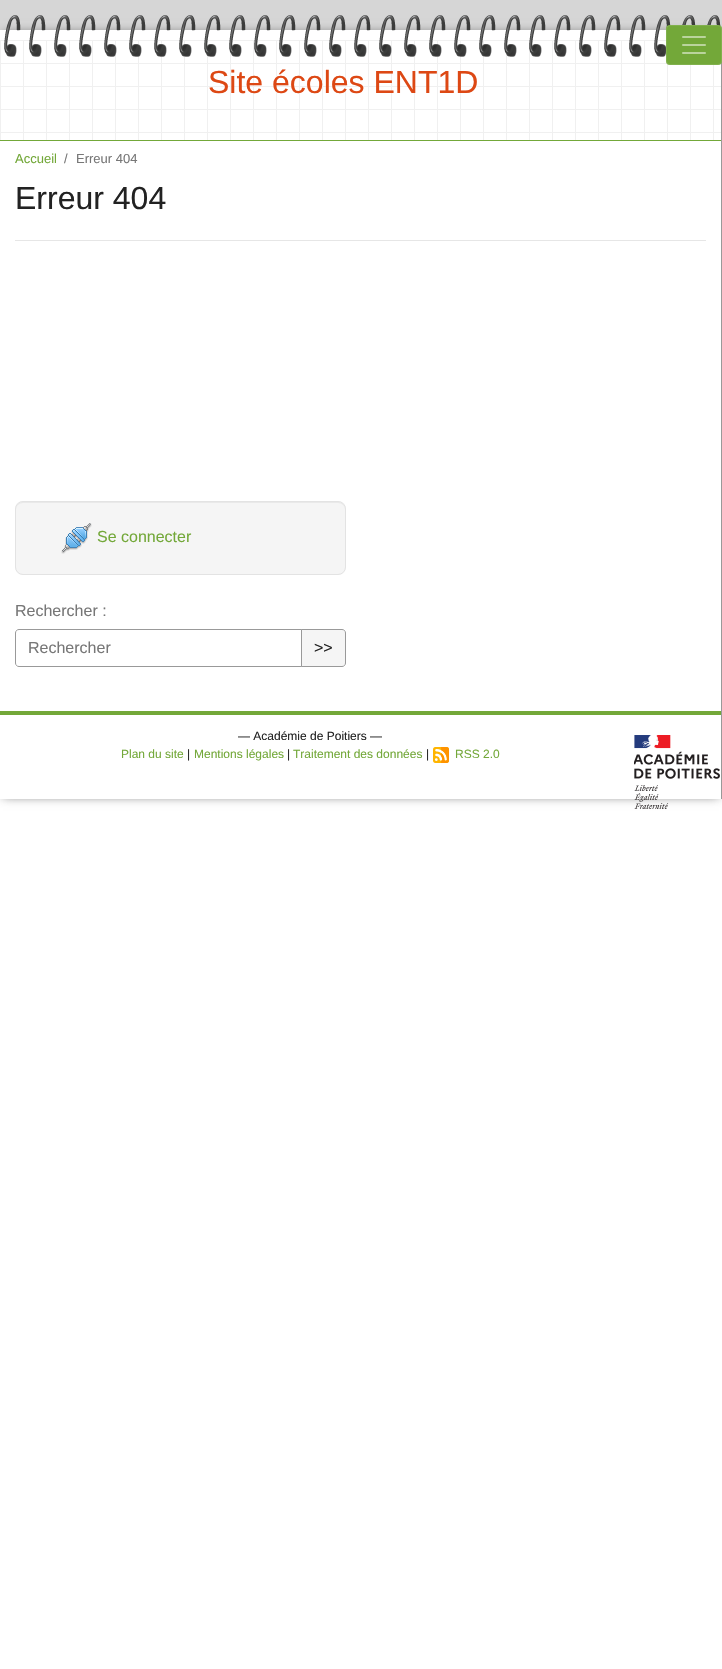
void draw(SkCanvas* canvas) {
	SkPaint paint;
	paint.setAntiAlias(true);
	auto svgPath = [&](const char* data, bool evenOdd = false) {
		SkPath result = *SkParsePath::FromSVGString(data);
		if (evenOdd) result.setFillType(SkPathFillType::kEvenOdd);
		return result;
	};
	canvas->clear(0xffffffff);
	canvas->drawImageRect(SkImages::DeferredFromEncodedData(SkData::MakeFromFileName("img1.png")), SkRect::MakeXYWH(0, 0, 722, 30), SkSamplingOptions());
	paint.setColor(0xff656565);
	paint.setMaskFilter(SkMaskFilter::MakeBlur(kNormal_SkBlurStyle, 5));
	canvas->drawRect(SkRect::MakeXYWH(3, 33, 716, 763), paint);
	paint.setMaskFilter(nullptr);
	paint.setColor(0xffffffff);
	canvas->drawRect(SkRect::MakeXYWH(0, 30, 721, 769), paint);
	paint.setColor(0xff999999);
	canvas->drawRect(SkRect::MakeXYWH(721, 61, 1, 738), paint);
	canvas->drawImageRect(SkImages::DeferredFromEncodedData(SkData::MakeFromFileName("img3.png")), SkRect::MakeXYWH(0, 40, 721, 100), SkSamplingOptions());
	canvas->drawImageRect(SkImages::DeferredFromEncodedData(SkData::MakeFromFileName("img4.png")), SkRect::MakeXYWH(4, 15, 717, 42), SkSamplingOptions());
	paint.setColor(0xff73a839);
	canvas->drawRoundRect(SkRect::MakeXYWH(666, 25, 56, 40), 4, 4, paint);
	paint.setStroke(true);
	paint.setStrokeWidth(1);
	paint.setColor(0x1affffff);
	canvas->drawRoundRect(SkRect::MakeXYWH(666.5, 25.5, 55, 39), 3.5, 3.5, paint);
	canvas->drawImageRect(SkImages::DeferredFromEncodedData(SkData::MakeFromFileName("img2.png")), SkRect::MakeXYWH(682, 36, 24, 18), SkSamplingOptions());
	paint.setStroke(false);
	paint.setColor(0xff73a839);
	canvas->drawRect(SkRect::MakeXYWH(0, 140, 721, 1), paint);
	SkFont f1(fontMgr->matchFamilyStyle("Liberation Sans", SkFontStyle::Normal()), 32);
	f1.setSubpixel(true);
	paint.setColor(0xffdd4814);
	canvas->drawString("Site écoles ENT1D", 208, 93, f1, paint);
	SkFont f2(fontMgr->matchFamilyStyle("Liberation Sans", SkFontStyle::Normal()), 13);
	f2.setSubpixel(true);
	paint.setColor(0xff73a839);
	canvas->drawString("Accueil", 15, 163, f2, paint);
	paint.setColor(0xff777777);
	canvas->drawString("/", 64, 163, f2, paint);
	canvas->drawString("Erreur 404", 76, 163, f2, paint);
	paint.setColor(0xffe6e6e6);
	canvas->drawRect(SkRect::MakeXYWH(15, 240, 691, 1), paint);
	paint.setColor(0xff222222);
	canvas->drawString("Erreur 404", 15, 209, f1, paint);
	paint.setColor(0xfff5f5f5);
	canvas->drawRoundRect(SkRect::MakeXYWH(15, 501, 331, 74), 8, 8, paint);
	paint.setColor(0xffe9e9e9);
	canvas->drawPath(svgPath("M23 503H338C342 503 345 506 345 510C345 506 343 502 338 502H23C18 502 16 506 16 510C16 506 19 503 23 503Z"), paint);
	paint.setStroke(true);
	paint.setColor(0xffe3e3e3);
	canvas->drawRoundRect(SkRect::MakeXYWH(15.5, 501.5, 330, 73), 7.5, 7.5, paint);
	canvas->drawImageRect(SkImages::DeferredFromEncodedData(SkData::MakeFromFileName("img5.png")), SkRect::MakeXYWH(61, 523, 31, 31), SkSamplingOptions());
	SkFont f3(fontMgr->matchFamilyStyle("Liberation Sans", SkFontStyle::Normal()), 16);
	f3.setSubpixel(true);
	paint.setStroke(false);
	paint.setColor(0xff73a839);
	canvas->drawString("Se connecter", 97, 542, f3, paint);
	paint.setColor(0xff777777);
	canvas->drawString("Rechercher :", 15, 616, f3, paint);
	paint.setStroke(true);
	paint.setColor(0xff999999);
	canvas->drawPath(svgPath("M19 629.5H301.5V666.5H19C17 666.5 15.5 665 15.5 663V633C15.5 631 17 629.5 19 629.5Z"), paint);
	paint.setStroke(false);
	paint.setColor(0xff777777);
	canvas->drawString("Rechercher", 28, 653, f3, paint);
	paint.setColor(0xfff5f5f5);
	canvas->drawPath(svgPath("M301.5 629.5H342C344 629.5 345.5 631 345.5 633V663C345.5 665 344 666.5 342 666.5H301.5Z"), paint);
	paint.setStroke(true);
	paint.setColor(0xff999999);
	canvas->drawPath(svgPath("M301.5 629.5H342C344 629.5 345.5 631 345.5 633V663C345.5 665 344 666.5 342 666.5H301.5Z"), paint);
	paint.setStroke(false);
	paint.setColor(0xff222222);
	canvas->drawString(">>", 314, 653, f3, paint);
	paint.setColor(0xff73a839);
	canvas->drawRect(SkRect::MakeXYWH(0, 711, 721, 4), paint);
	SkFont f4(fontMgr->matchFamilyStyle("Liberation Sans", SkFontStyle::Normal()), 12);
	f4.setSubpixel(true);
	paint.setColor(0xff222222);
	canvas->drawString("— Académie de Poitiers —", 238, 740, f4, paint);
	paint.setColor(0xff73a839);
	canvas->drawString("Plan du site", 121, 758, f4, paint);
	paint.setColor(0xff222222);
	canvas->drawString("|", 187, 758, f4, paint);
	paint.setColor(0xff73a839);
	canvas->drawString("Mentions légales", 194, 758, f4, paint);
	paint.setColor(0xff222222);
	canvas->drawString("|", 287, 758, f4, paint);
	paint.setColor(0xff73a839);
	canvas->drawString("Traitement des données", 293, 758, f4, paint);
	paint.setColor(0xff222222);
	canvas->drawString("|", 426, 758, f4, paint);
	canvas->drawImageRect(SkImages::DeferredFromEncodedData(SkData::MakeFromFileName("img6.png")), SkRect::MakeXYWH(433, 747, 16, 16), SkSamplingOptions());
	paint.setColor(0xff73a839);
	canvas->drawString("RSS 2.0", 455, 758, f4, paint);
	canvas->drawImageRect(SkImages::DeferredFromEncodedData(SkData::MakeFromFileName("img7.png")), SkRect::MakeXYWH(634, 735, 86, 74), SkSamplingOptions());
}
